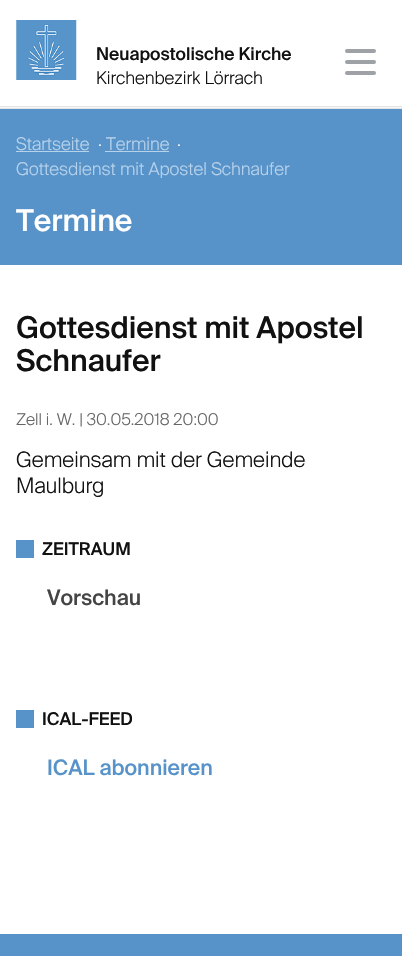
void draw(SkCanvas* canvas) {
	SkPaint paint;
	paint.setAntiAlias(true);
	canvas->clear(0xffffffff);
	canvas->drawImageRect(SkImages::DeferredFromEncodedData(SkData::MakeFromFileName("img1.png")), SkRect::MakeXYWH(16, 20, 61, 60), SkSamplingOptions());
	SkFont f1(fontMgr->matchFamilyStyle("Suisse", SkFontStyle(500, SkFontStyle::kNormal_Width, SkFontStyle::kUpright_Slant)), 17.5);
	f1.setSubpixel(true);
	paint.setColor(0xff111111);
	canvas->drawString("Neuapostolische Kirche", 96, 60, f1, paint);
	SkFont f2(fontMgr->matchFamilyStyle("Suisse", SkFontStyle(300, SkFontStyle::kNormal_Width, SkFontStyle::kUpright_Slant)), 17.5);
	f2.setSubpixel(true);
	canvas->drawString("Kirchenbezirk Lörrach", 96, 84, f2, paint);
	paint.setColor(0xff9ea1a6);
	canvas->drawRoundRect(SkRect::MakeXYWH(345, 49, 31, 4), 2, 2, paint);
	canvas->drawRoundRect(SkRect::MakeXYWH(345, 60, 31, 4), 2, 2, paint);
	canvas->drawRoundRect(SkRect::MakeXYWH(345, 71, 31, 4), 2, 2, paint);
	paint.setColor(0xfff5f5f5);
	canvas->drawRect(SkRect::MakeXYWH(0, 107, 402, 1), paint);
	paint.setColor(0xffe6e6e6);
	canvas->drawRect(SkRect::MakeXYWH(0, 106, 402, 1), paint);
	canvas->drawRect(SkRect::MakeXYWH(0, 108, 402, 1), paint);
	paint.setColor(0xff5793c9);
	canvas->drawRect(SkRect::MakeXYWH(0, 109, 402, 156), paint);
	paint.setColor(0xffb7d2eb);
	canvas->drawString("Startseite", 16, 150, f2, paint);
	canvas->drawRect(SkRect::MakeXYWH(16, 151, 73, 1), paint);
	paint.setColor(0xffffffff);
	canvas->drawString("·", 98, 150, f2, paint);
	paint.setColor(0xffb7d2eb);
	canvas->drawString("Termine", 106, 150, f2, paint);
	canvas->drawRect(SkRect::MakeXYWH(105, 151, 64, 1), paint);
	paint.setColor(0xffffffff);
	canvas->drawString("·", 177, 150, f2, paint);
	paint.setColor(0xffb7d2eb);
	canvas->drawString("Gottesdienst mit Apostel Schnaufer", 16, 175, f2, paint);
	SkFont f3(fontMgr->matchFamilyStyle("Suisse", SkFontStyle(500, SkFontStyle::kNormal_Width, SkFontStyle::kUpright_Slant)), 30);
	f3.setSubpixel(true);
	paint.setColor(0xffffffff);
	canvas->drawString("Termine", 16, 231, f3, paint);
	paint.setColor(0xff111111);
	canvas->drawString("Gottesdienst mit Apostel", 16, 338, f3, paint);
	canvas->drawString("Schnaufer", 16, 371, f3, paint);
	SkFont f4(fontMgr->matchFamilyStyle("Suisse", SkFontStyle(300, SkFontStyle::kNormal_Width, SkFontStyle::kUpright_Slant)), 16.25);
	f4.setSubpixel(true);
	paint.setColor(0xff666666);
	canvas->drawString("Zell i. W. | 30.05.2018 20:00", 16, 425, f4, paint);
	SkFont f5(fontMgr->matchFamilyStyle("Suisse", SkFontStyle(300, SkFontStyle::kNormal_Width, SkFontStyle::kUpright_Slant)), 21.25);
	f5.setSubpixel(true);
	paint.setColor(0xff111111);
	canvas->drawString("Gemeinsam mit der Gemeinde", 16, 467, f5, paint);
	canvas->drawString("Maulburg", 16, 493, f5, paint);
	paint.setColor(0xff5793c9);
	canvas->drawRect(SkRect::MakeXYWH(16, 540, 18, 18), paint);
	paint.setColor(0xff111111);
	canvas->drawString("ZEITRAUM", 42, 555, f1, paint);
	SkFont f6(fontMgr->matchFamilyStyle("Suisse", SkFontStyle(500, SkFontStyle::kNormal_Width, SkFontStyle::kUpright_Slant)), 21.25);
	f6.setSubpixel(true);
	paint.setColor(0xff444444);
	canvas->drawString("Vorschau", 47, 605, f6, paint);
	paint.setColor(0xff5793c9);
	canvas->drawRect(SkRect::MakeXYWH(16, 710, 18, 18), paint);
	paint.setColor(0xff111111);
	canvas->drawString("ICAL-FEED", 42, 725, f1, paint);
	paint.setColor(0xff5793c9);
	canvas->drawString("ICAL abonnieren", 47, 775, f6, paint);
	canvas->drawRect(SkRect::MakeXYWH(0, 934, 402, 22), paint);
}
